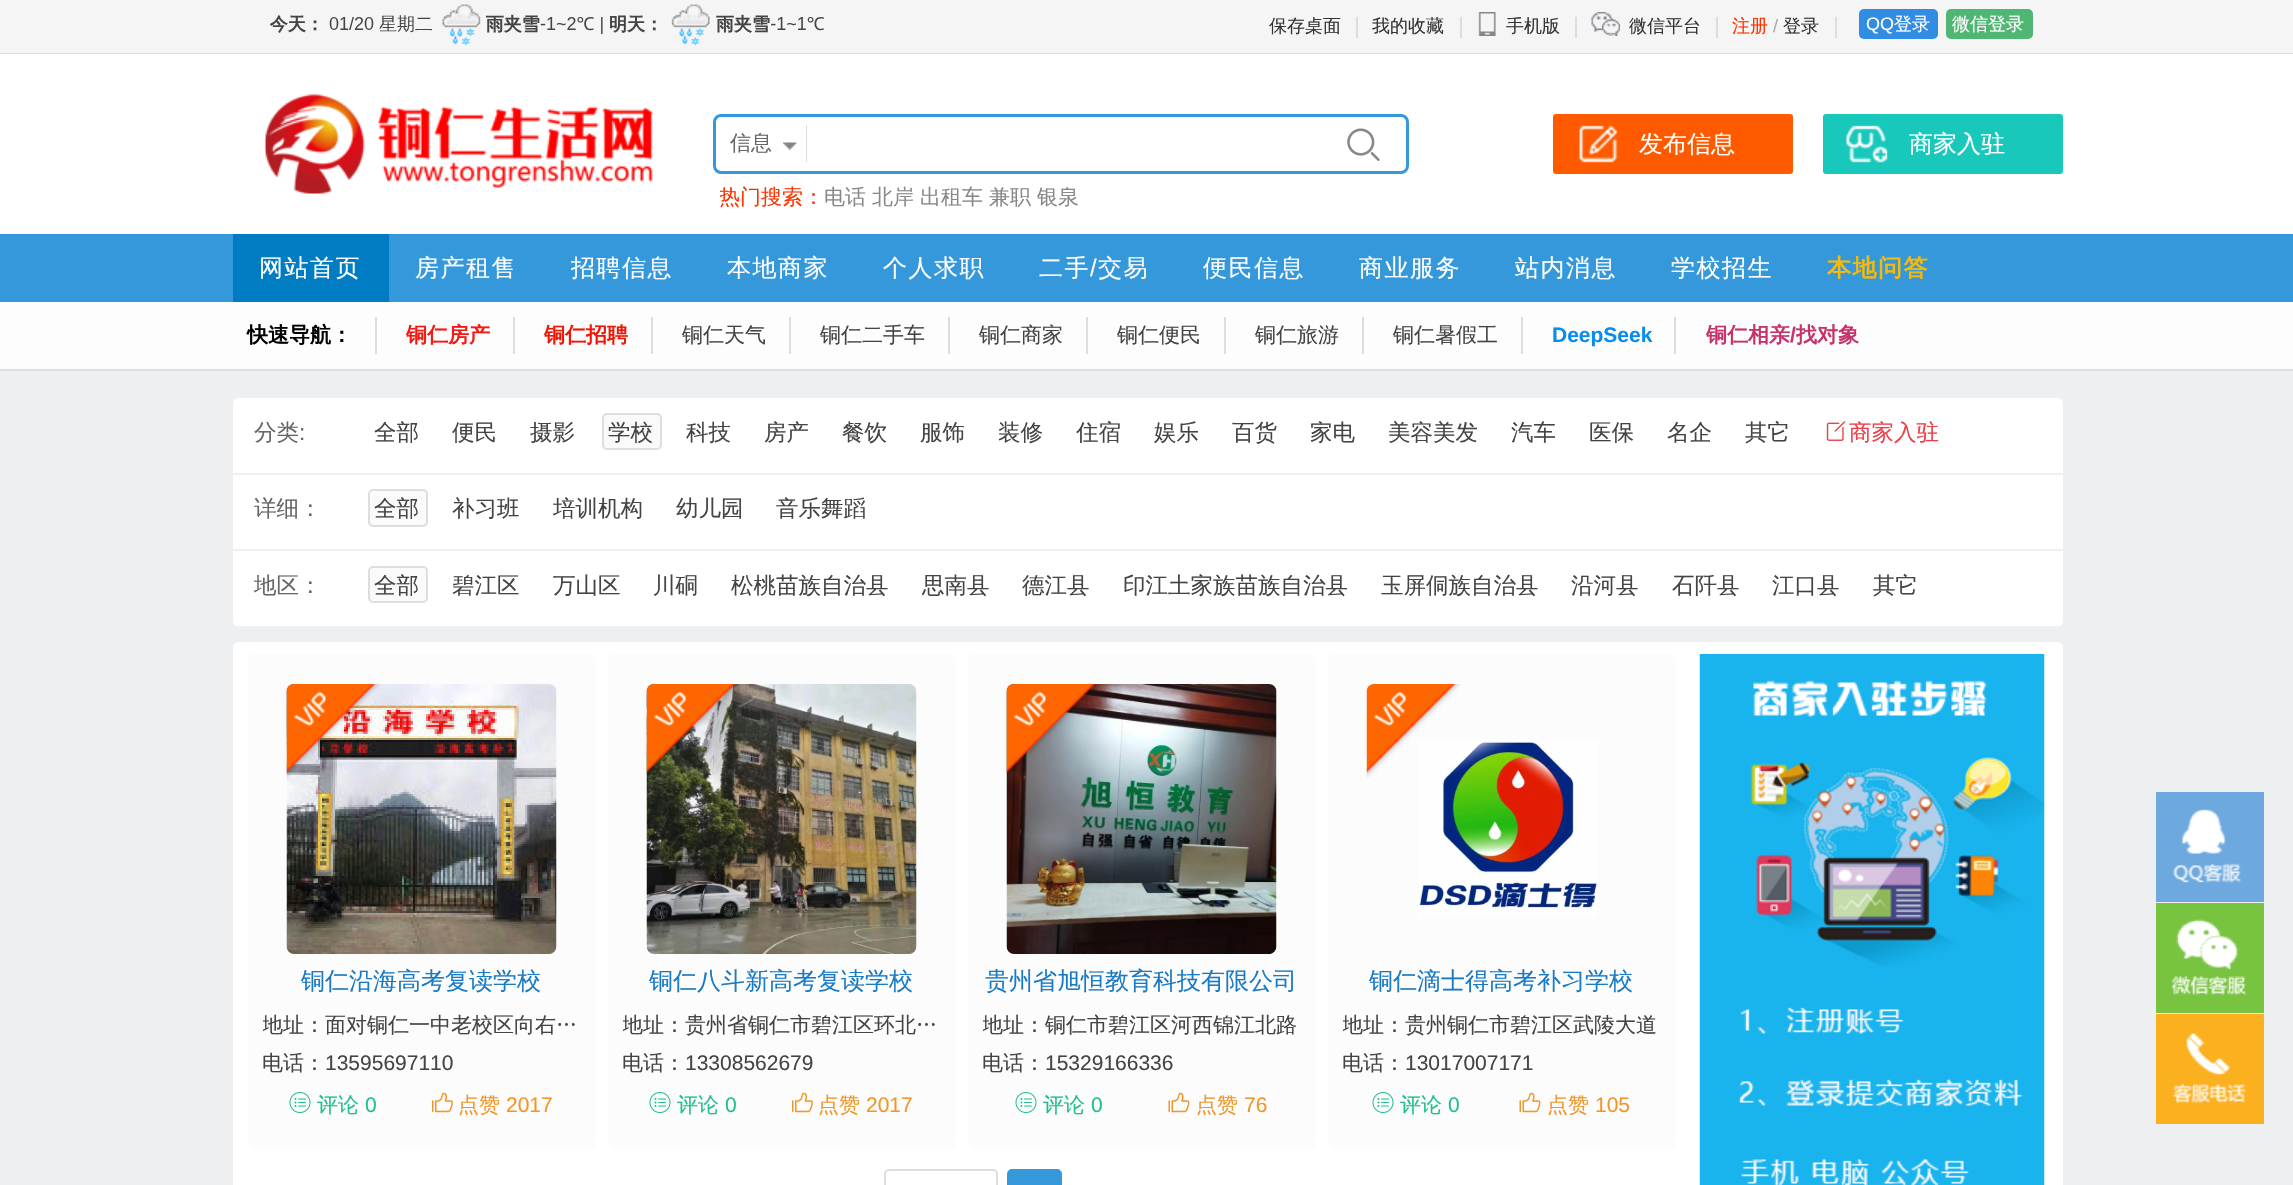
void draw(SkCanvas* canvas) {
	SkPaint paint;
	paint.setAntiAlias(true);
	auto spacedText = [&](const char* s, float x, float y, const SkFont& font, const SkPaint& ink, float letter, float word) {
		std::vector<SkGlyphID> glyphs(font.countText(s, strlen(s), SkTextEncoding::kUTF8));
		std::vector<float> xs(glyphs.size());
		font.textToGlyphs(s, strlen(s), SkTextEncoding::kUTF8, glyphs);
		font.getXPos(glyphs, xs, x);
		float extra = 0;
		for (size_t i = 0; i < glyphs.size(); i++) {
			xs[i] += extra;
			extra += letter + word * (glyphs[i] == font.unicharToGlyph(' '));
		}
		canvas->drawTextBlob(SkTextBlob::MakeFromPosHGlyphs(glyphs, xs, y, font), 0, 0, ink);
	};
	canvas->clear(0xffeeeff1);
	paint.setColor(0xfff5f5f5);
	canvas->drawRect(SkRect::MakeXYWH(0, 0, 2293, 53), paint);
	paint.setColor(0xffdedede);
	canvas->drawRect(SkRect::MakeXYWH(0, 53, 2293, 1), paint);
	canvas->drawImageRect(SkImages::DeferredFromEncodedData(SkData::MakeFromFileName("img1.png")), SkRect::MakeXYWH(270, 4, 555, 42), SkSamplingOptions());
	SkFont f1(fontMgr->matchFamilyStyle("WenQuanYi Zen Hei", SkFontStyle(500, SkFontStyle::kNormal_Width, SkFontStyle::kUpright_Slant)), 18);
	f1.setSubpixel(true);
	paint.setColor(0xff333333);
	canvas->drawString("保存桌面", 1269, 32, f1, paint);
	paint.setColor(0xffdddddd);
	canvas->drawRect(SkRect::MakeXYWH(1356, 15, 2, 23), paint);
	paint.setColor(0xffefefef);
	canvas->drawRect(SkRect::MakeXYWH(1356, 15, 2, 2), paint);
	paint.setColor(0xff333333);
	canvas->drawString("我的收藏", 1372, 32, f1, paint);
	paint.setColor(0xffdddddd);
	canvas->drawRect(SkRect::MakeXYWH(1460, 15, 2, 23), paint);
	paint.setColor(0xffefefef);
	canvas->drawRect(SkRect::MakeXYWH(1460, 15, 2, 2), paint);
	canvas->drawImageRect(SkImages::DeferredFromEncodedData(SkData::MakeFromFileName("img2.png")), SkRect::MakeXYWH(1478, 12, 18, 24), SkSamplingOptions());
	paint.setColor(0xff333333);
	canvas->drawString("手机版", 1506, 32, f1, paint);
	paint.setColor(0xffdddddd);
	canvas->drawRect(SkRect::MakeXYWH(1575, 15, 2, 23), paint);
	paint.setColor(0xffefefef);
	canvas->drawRect(SkRect::MakeXYWH(1575, 15, 2, 2), paint);
	canvas->drawImageRect(SkImages::DeferredFromEncodedData(SkData::MakeFromFileName("img3.png")), SkRect::MakeXYWH(1591, 12, 29, 24), SkSamplingOptions());
	paint.setColor(0xff333333);
	canvas->drawString("微信平台", 1629, 32, f1, paint);
	paint.setColor(0xffdddddd);
	canvas->drawRect(SkRect::MakeXYWH(1716, 15, 2, 23), paint);
	paint.setColor(0xffefefef);
	canvas->drawRect(SkRect::MakeXYWH(1716, 15, 2, 2), paint);
	paint.setColor(0xffff3300);
	canvas->drawString("注册", 1732, 32, f1, paint);
	SkFont f2(fontMgr->matchFamilyStyle("Liberation Sans", SkFontStyle::Normal()), 18);
	f2.setSubpixel(true);
	paint.setColor(0xffaaaaaa);
	canvas->drawString("/", 1773, 32, f2, paint);
	paint.setColor(0xff333333);
	canvas->drawString("登录", 1783, 32, f1, paint);
	paint.setColor(0xffdddddd);
	canvas->drawRect(SkRect::MakeXYWH(1835, 15, 2, 23), paint);
	paint.setColor(0xffefefef);
	canvas->drawRect(SkRect::MakeXYWH(1835, 15, 2, 2), paint);
	paint.setColor(0xff318de4);
	canvas->drawRoundRect(SkRect::MakeXYWH(1859, 9, 79, 30), 5, 5, paint);
	paint.setColor(0xffffffff);
	canvas->drawString("QQ", 1866, 30, f2, paint);
	canvas->drawString("登录", 1894, 30, f1, paint);
	paint.setColor(0xff50b674);
	canvas->drawRoundRect(SkRect::MakeXYWH(1946, 9, 87, 30), 5, 5, paint);
	paint.setColor(0xffffffff);
	canvas->drawString("微信登录", 1952, 30, f1, paint);
	canvas->drawRect(SkRect::MakeXYWH(0, 54, 2293, 180), paint);
	canvas->drawImageRect(SkImages::DeferredFromEncodedData(SkData::MakeFromFileName("img4.png")), SkRect::MakeXYWH(265, 94, 388, 100), SkSamplingOptions());
	paint.setStroke(true);
	paint.setStrokeWidth(3);
	paint.setColor(0xff3598db);
	canvas->drawRoundRect(SkRect::MakeXYWH(714.5, 115.5, 693, 57), 6.5, 6.5, paint);
	canvas->drawImageRect(SkImages::DeferredFromEncodedData(SkData::MakeFromFileName("img5.png")), SkRect::MakeXYWH(783, 142, 14, 8), SkSamplingOptions());
	paint.setStroke(false);
	paint.setColor(0xffdedede);
	canvas->drawRect(SkRect::MakeXYWH(806, 125, 1, 37), paint);
	SkFont f3(fontMgr->matchFamilyStyle("WenQuanYi Zen Hei", SkFontStyle(500, SkFontStyle::kNormal_Width, SkFontStyle::kUpright_Slant)), 21);
	f3.setSubpixel(true);
	paint.setColor(0xff666666);
	canvas->drawString("信息", 730, 150, f3, paint);
	canvas->drawImageRect(SkImages::DeferredFromEncodedData(SkData::MakeFromFileName("img6.png")), SkRect::MakeXYWH(1347, 128, 33, 33), SkSamplingOptions());
	canvas->save();
	canvas->clipRect(SkRect::MakeXYWH(720, 174, 675, 45));
	paint.setColor(0xffff3300);
	canvas->drawString("热门搜索：", 719, 204, f3, paint);
	canvas->restore();
	paint.setColor(0xff888888);
	canvas->drawString("电话", 824, 204, f3, paint);
	canvas->drawString("北岸", 872, 204, f3, paint);
	canvas->drawString("出租车", 920, 204, f3, paint);
	canvas->drawString("兼职", 989, 204, f3, paint);
	canvas->drawString("银泉", 1037, 204, f3, paint);
	paint.setColor(0xffff5a00);
	canvas->drawRoundRect(SkRect::MakeXYWH(1553, 114, 240, 60), 3, 3, paint);
	canvas->drawImageRect(SkImages::DeferredFromEncodedData(SkData::MakeFromFileName("img7.png")), SkRect::MakeXYWH(1579, 125, 39, 38), SkSamplingOptions());
	SkFont f4(fontMgr->matchFamilyStyle("WenQuanYi Zen Hei", SkFontStyle(500, SkFontStyle::kNormal_Width, SkFontStyle::kUpright_Slant)), 24);
	f4.setSubpixel(true);
	paint.setColor(0xffffffff);
	canvas->drawString("发布信息", 1639, 152, f4, paint);
	paint.setColor(0xff18c8bb);
	canvas->drawRoundRect(SkRect::MakeXYWH(1823, 114, 240, 60), 3, 3, paint);
	canvas->drawImageRect(SkImages::DeferredFromEncodedData(SkData::MakeFromFileName("img8.png")), SkRect::MakeXYWH(1846, 125, 42, 38), SkSamplingOptions());
	paint.setColor(0xffffffff);
	canvas->drawString("商家入驻", 1909, 152, f4, paint);
	paint.setColor(0xff3598db);
	canvas->drawRect(SkRect::MakeXYWH(0, 234, 2293, 68), paint);
	paint.setColor(0xff007cc3);
	canvas->drawRect(SkRect::MakeXYWH(233, 234, 156, 68), paint);
	paint.setColor(0xffffffff);
	spacedText("网站首页", 259, 276, f4, paint, 1.5, 0);
	spacedText("房产租售", 415, 276, f4, paint, 1.5, 0);
	spacedText("招聘信息", 571, 276, f4, paint, 1.5, 0);
	spacedText("本地商家", 727, 276, f4, paint, 1.5, 0);
	spacedText("个人求职", 883, 276, f4, paint, 1.5, 0);
	spacedText("二手", 1039, 276, f4, paint, 1.5, 0);
	SkFont f5(fontMgr->matchFamilyStyle("Liberation Sans", SkFontStyle::Normal()), 24);
	f5.setSubpixel(true);
	spacedText("/", 1090, 276, f5, paint, 1.5, 0);
	spacedText("交易", 1098, 276, f4, paint, 1.5, 0);
	spacedText("便民信息", 1203, 276, f4, paint, 1.5, 0);
	spacedText("商业服务", 1359, 276, f4, paint, 1.5, 0);
	spacedText("站内消息", 1515, 276, f4, paint, 1.5, 0);
	spacedText("学校招生", 1671, 276, f4, paint, 1.5, 0);
	SkFont f6(fontMgr->matchFamilyStyle("WenQuanYi Zen Hei", SkFontStyle::Bold()), 24);
	f6.setSubpixel(true);
	paint.setColor(0xfff5ba0a);
	spacedText("本地问答", 1827, 276, f6, paint, 1.5, 0);
	paint.setColor(0xfffdfdfd);
	canvas->drawRect(SkRect::MakeXYWH(0, 302, 2293, 67), paint);
	paint.setColor(0xffdedede);
	canvas->drawRect(SkRect::MakeXYWH(0, 369, 2293, 2), paint);
	canvas->drawRect(SkRect::MakeXYWH(375, 317, 2, 37), paint);
	SkFont f7(fontMgr->matchFamilyStyle("WenQuanYi Zen Hei", SkFontStyle::Bold()), 21);
	f7.setSubpixel(true);
	paint.setColor(0xff000000);
	canvas->drawString("快速导航：", 247, 342, f7, paint);
	paint.setColor(0xffdedede);
	canvas->drawRect(SkRect::MakeXYWH(513, 317, 2, 37), paint);
	paint.setColor(0xfff51911);
	canvas->drawString("铜仁房产", 406, 342, f7, paint);
	paint.setColor(0xffdedede);
	canvas->drawRect(SkRect::MakeXYWH(651, 317, 2, 37), paint);
	paint.setColor(0xfff01707);
	canvas->drawString("铜仁招聘", 544, 342, f7, paint);
	paint.setColor(0xffdedede);
	canvas->drawRect(SkRect::MakeXYWH(789, 317, 2, 37), paint);
	paint.setColor(0xff444444);
	canvas->drawString("铜仁天气", 682, 342, f3, paint);
	paint.setColor(0xffdedede);
	canvas->drawRect(SkRect::MakeXYWH(948, 317, 2, 37), paint);
	paint.setColor(0xff444444);
	canvas->drawString("铜仁二手车", 820, 342, f3, paint);
	paint.setColor(0xffdedede);
	canvas->drawRect(SkRect::MakeXYWH(1086, 317, 2, 37), paint);
	paint.setColor(0xff444444);
	canvas->drawString("铜仁商家", 979, 342, f3, paint);
	paint.setColor(0xffdedede);
	canvas->drawRect(SkRect::MakeXYWH(1224, 317, 2, 37), paint);
	paint.setColor(0xff444444);
	canvas->drawString("铜仁便民", 1117, 342, f3, paint);
	paint.setColor(0xffdedede);
	canvas->drawRect(SkRect::MakeXYWH(1362, 317, 2, 37), paint);
	paint.setColor(0xff444444);
	canvas->drawString("铜仁旅游", 1255, 342, f3, paint);
	paint.setColor(0xffdedede);
	canvas->drawRect(SkRect::MakeXYWH(1521, 317, 2, 37), paint);
	paint.setColor(0xff444444);
	canvas->drawString("铜仁暑假工", 1393, 342, f3, paint);
	paint.setColor(0xffdedede);
	canvas->drawRect(SkRect::MakeXYWH(1674, 317, 2, 37), paint);
	SkFont f8(fontMgr->matchFamilyStyle("Liberation Sans", SkFontStyle::Bold()), 21);
	f8.setSubpixel(true);
	paint.setColor(0xff078ded);
	canvas->drawString("DeepSeek", 1552, 342, f8, paint);
	paint.setColor(0xffc7326b);
	canvas->drawString("铜仁相亲", 1706, 342, f7, paint);
	canvas->drawString("/", 1790, 342, f8, paint);
	canvas->drawString("找对象", 1796, 342, f7, paint);
	paint.setColor(0xffffffff);
	canvas->drawRoundRect(SkRect::MakeXYWH(233, 398, 1830, 229), 5, 5, paint);
	paint.setColor(0xfff0f0f0);
	canvas->drawRect(SkRect::MakeXYWH(233, 473, 1830, 2), paint);
	SkFont f9(fontMgr->matchFamilyStyle("WenQuanYi Zen Hei", SkFontStyle(500, SkFontStyle::kNormal_Width, SkFontStyle::kUpright_Slant)), 22.5);
	f9.setSubpixel(true);
	paint.setColor(0xff666666);
	canvas->drawString("分类", 254, 440, f9, paint);
	SkFont f10(fontMgr->matchFamilyStyle("Liberation Sans", SkFontStyle::Normal()), 22.5);
	f10.setSubpixel(true);
	canvas->drawString(":", 299, 440, f10, paint);
	paint.setColor(0xff444444);
	canvas->drawString("全部", 374, 440, f9, paint);
	canvas->drawString("便民", 452, 440, f9, paint);
	canvas->drawString("摄影", 530, 440, f9, paint);
	paint.setColor(0xfffafafa);
	canvas->drawRoundRect(SkRect::MakeXYWH(603, 414, 58, 35), 4, 4, paint);
	paint.setStroke(true);
	paint.setStrokeWidth(2);
	paint.setColor(0xffdedede);
	canvas->drawRoundRect(SkRect::MakeXYWH(603, 414, 58, 35), 4, 4, paint);
	paint.setStroke(false);
	paint.setColor(0xff444444);
	canvas->drawString("学校", 608, 440, f9, paint);
	canvas->drawString("科技", 686, 440, f9, paint);
	canvas->drawString("房产", 764, 440, f9, paint);
	canvas->drawString("餐饮", 842, 440, f9, paint);
	canvas->drawString("服饰", 920, 440, f9, paint);
	canvas->drawString("装修", 998, 440, f9, paint);
	canvas->drawString("住宿", 1076, 440, f9, paint);
	canvas->drawString("娱乐", 1154, 440, f9, paint);
	canvas->drawString("百货", 1232, 440, f9, paint);
	canvas->drawString("家电", 1310, 440, f9, paint);
	canvas->drawString("美容美发", 1388, 440, f9, paint);
	canvas->drawString("汽车", 1511, 440, f9, paint);
	canvas->drawString("医保", 1589, 440, f9, paint);
	canvas->drawString("名企", 1667, 440, f9, paint);
	canvas->drawString("其它", 1745, 440, f9, paint);
	canvas->drawImageRect(SkImages::DeferredFromEncodedData(SkData::MakeFromFileName("img9.png")), SkRect::MakeXYWH(1826, 421, 20, 20), SkSamplingOptions());
	paint.setColor(0xffed414a);
	canvas->drawString("商家入驻", 1849, 440, f9, paint);
	paint.setColor(0xfff0f0f0);
	canvas->drawRect(SkRect::MakeXYWH(233, 549, 1830, 2), paint);
	paint.setColor(0xff666666);
	canvas->drawString("详细：", 254, 516, f9, paint);
	paint.setColor(0xfffafafa);
	canvas->drawRoundRect(SkRect::MakeXYWH(369, 490, 58, 36), 4, 4, paint);
	paint.setStroke(true);
	paint.setColor(0xffdedede);
	canvas->drawRoundRect(SkRect::MakeXYWH(369, 490, 58, 36), 4, 4, paint);
	paint.setStroke(false);
	paint.setColor(0xff444444);
	canvas->drawString("全部", 374, 516, f9, paint);
	canvas->drawString("补习班", 452, 516, f9, paint);
	canvas->drawString("培训机构", 553, 516, f9, paint);
	canvas->drawString("幼儿园", 676, 516, f9, paint);
	canvas->drawString("音乐舞蹈", 776, 516, f9, paint);
	paint.setColor(0xfff0f0f0);
	canvas->drawRect(SkRect::MakeXYWH(233, 626, 1830, 1), paint);
	paint.setColor(0xff666666);
	canvas->drawString("地区：", 254, 593, f9, paint);
	paint.setColor(0xfffafafa);
	canvas->drawRoundRect(SkRect::MakeXYWH(369, 567, 58, 35), 4, 4, paint);
	paint.setStroke(true);
	paint.setColor(0xffdedede);
	canvas->drawRoundRect(SkRect::MakeXYWH(369, 567, 58, 35), 4, 4, paint);
	paint.setStroke(false);
	paint.setColor(0xff444444);
	canvas->drawString("全部", 374, 593, f9, paint);
	canvas->drawString("碧江区", 452, 593, f9, paint);
	canvas->drawString("万山区", 553, 593, f9, paint);
	canvas->drawString("川硐", 653, 593, f9, paint);
	canvas->drawString("松桃苗族自治县", 731, 593, f9, paint);
	canvas->drawString("思南县", 922, 593, f9, paint);
	canvas->drawString("德江县", 1022, 593, f9, paint);
	canvas->drawString("印江土家族苗族自治县", 1123, 593, f9, paint);
	canvas->drawString("玉屏侗族自治县", 1381, 593, f9, paint);
	canvas->drawString("沿河县", 1571, 593, f9, paint);
	canvas->drawString("石阡县", 1672, 593, f9, paint);
	canvas->drawString("江口县", 1772, 593, f9, paint);
	canvas->drawString("其它", 1873, 593, f9, paint);
	paint.setColor(0xffffffff);
	canvas->drawRoundRect(SkRect::MakeXYWH(233, 642, 1830, 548), 5, 5, paint);
	paint.setColor(0xfffcfcfc);
	canvas->drawRoundRect(SkRect::MakeXYWH(248, 654, 348, 495), 8, 8, paint);
	canvas->drawImageRect(SkImages::DeferredFromEncodedData(SkData::MakeFromFileName("img10.png")), SkRect::MakeXYWH(286, 684, 271, 270), SkSamplingOptions());
	canvas->drawImageRect(SkImages::DeferredFromEncodedData(SkData::MakeFromFileName("img11.png")), SkRect::MakeXYWH(286, 684, 95, 95), SkSamplingOptions());
	paint.setColor(0xff197ac5);
	canvas->drawString("铜仁沿海高考复读学校", 301, 989, f4, paint);
	canvas->save();
	canvas->clipRect(SkRect::MakeXYWH(263, 1007, 318, 37));
	paint.setColor(0xff444444);
	canvas->drawString("地址：面对铜仁一中老校区向右…", 262, 1032, f3, paint);
	canvas->restore();
	canvas->drawString("电话：", 262, 1070, f3, paint);
	SkFont f11(fontMgr->matchFamilyStyle("Liberation Sans", SkFontStyle::Normal()), 21);
	f11.setSubpixel(true);
	canvas->drawString("13595697110", 325, 1070, f11, paint);
	canvas->drawImageRect(SkImages::DeferredFromEncodedData(SkData::MakeFromFileName("img12.png")), SkRect::MakeXYWH(289, 1092, 22, 21), SkSamplingOptions());
	paint.setColor(0xff1fbf8c);
	canvas->drawString("评论", 317, 1112, f3, paint);
	canvas->drawString("0", 365, 1112, f11, paint);
	canvas->drawImageRect(SkImages::DeferredFromEncodedData(SkData::MakeFromFileName("img13.png")), SkRect::MakeXYWH(432, 1092, 21, 21), SkSamplingOptions());
	paint.setColor(0xfff0962a);
	canvas->drawString("点赞", 458, 1112, f3, paint);
	canvas->drawString("2017", 506, 1112, f11, paint);
	paint.setColor(0xfffcfcfc);
	canvas->drawRoundRect(SkRect::MakeXYWH(608, 654, 348, 495), 8, 8, paint);
	canvas->drawImageRect(SkImages::DeferredFromEncodedData(SkData::MakeFromFileName("img14.png")), SkRect::MakeXYWH(646, 684, 271, 270), SkSamplingOptions());
	canvas->drawImageRect(SkImages::DeferredFromEncodedData(SkData::MakeFromFileName("img15.png")), SkRect::MakeXYWH(646, 684, 95, 91), SkSamplingOptions());
	paint.setColor(0xff197ac5);
	canvas->drawString("铜仁八斗新高考复读学校", 649, 989, f4, paint);
	canvas->save();
	canvas->clipRect(SkRect::MakeXYWH(623, 1007, 318, 37));
	paint.setColor(0xff444444);
	canvas->drawString("地址：贵州省铜仁市碧江区环北…", 622, 1032, f3, paint);
	canvas->restore();
	canvas->drawString("电话：", 622, 1070, f3, paint);
	canvas->drawString("13308562679", 685, 1070, f11, paint);
	canvas->drawImageRect(SkImages::DeferredFromEncodedData(SkData::MakeFromFileName("img12.png")), SkRect::MakeXYWH(649, 1092, 22, 21), SkSamplingOptions());
	paint.setColor(0xff1fbf8c);
	canvas->drawString("评论", 677, 1112, f3, paint);
	canvas->drawString("0", 725, 1112, f11, paint);
	canvas->drawImageRect(SkImages::DeferredFromEncodedData(SkData::MakeFromFileName("img13.png")), SkRect::MakeXYWH(792, 1092, 21, 21), SkSamplingOptions());
	paint.setColor(0xfff0962a);
	canvas->drawString("点赞", 818, 1112, f3, paint);
	canvas->drawString("2017", 866, 1112, f11, paint);
	paint.setColor(0xfffcfcfc);
	canvas->drawRoundRect(SkRect::MakeXYWH(968, 654, 348, 495), 8, 8, paint);
	canvas->drawImageRect(SkImages::DeferredFromEncodedData(SkData::MakeFromFileName("img16.png")), SkRect::MakeXYWH(1006, 684, 271, 270), SkSamplingOptions());
	canvas->drawImageRect(SkImages::DeferredFromEncodedData(SkData::MakeFromFileName("img17.png")), SkRect::MakeXYWH(1006, 684, 95, 92), SkSamplingOptions());
	paint.setColor(0xff197ac5);
	canvas->drawString("贵州省旭恒教育科技有限公司", 985, 989, f4, paint);
	canvas->save();
	canvas->clipRect(SkRect::MakeXYWH(983, 1007, 318, 37));
	paint.setColor(0xff444444);
	canvas->drawString("地址：铜仁市碧江区河西锦江北路", 982, 1032, f3, paint);
	canvas->restore();
	canvas->drawString("电话：", 982, 1070, f3, paint);
	canvas->drawString("15329166336", 1045, 1070, f11, paint);
	canvas->drawImageRect(SkImages::DeferredFromEncodedData(SkData::MakeFromFileName("img12.png")), SkRect::MakeXYWH(1015, 1092, 22, 21), SkSamplingOptions());
	paint.setColor(0xff1fbf8c);
	canvas->drawString("评论", 1043, 1112, f3, paint);
	canvas->drawString("0", 1091, 1112, f11, paint);
	canvas->drawImageRect(SkImages::DeferredFromEncodedData(SkData::MakeFromFileName("img18.png")), SkRect::MakeXYWH(1168, 1092, 22, 21), SkSamplingOptions());
	paint.setColor(0xfff0962a);
	canvas->drawString("点赞", 1196, 1112, f3, paint);
	canvas->drawString("76", 1244, 1112, f11, paint);
	paint.setColor(0xfffcfcfc);
	canvas->drawRoundRect(SkRect::MakeXYWH(1328, 654, 348, 495), 8, 8, paint);
	canvas->drawImageRect(SkImages::DeferredFromEncodedData(SkData::MakeFromFileName("img20.png")), SkRect::MakeXYWH(1418, 742, 180, 176), SkSamplingOptions());
	canvas->drawImageRect(SkImages::DeferredFromEncodedData(SkData::MakeFromFileName("img19.png")), SkRect::MakeXYWH(1366, 684, 95, 95), SkSamplingOptions());
	paint.setColor(0xff197ac5);
	canvas->drawString("铜仁滴士得高考补习学校", 1369, 989, f4, paint);
	canvas->save();
	canvas->clipRect(SkRect::MakeXYWH(1343, 1007, 318, 37));
	paint.setColor(0xff444444);
	canvas->drawString("地址：贵州铜仁市碧江区武陵大道", 1342, 1032, f3, paint);
	canvas->restore();
	canvas->drawString("电话：", 1342, 1070, f3, paint);
	canvas->drawString("13017007171", 1405, 1070, f11, paint);
	canvas->drawImageRect(SkImages::DeferredFromEncodedData(SkData::MakeFromFileName("img12.png")), SkRect::MakeXYWH(1372, 1092, 22, 21), SkSamplingOptions());
	paint.setColor(0xff1fbf8c);
	canvas->drawString("评论", 1400, 1112, f3, paint);
	canvas->drawString("0", 1448, 1112, f11, paint);
	canvas->drawImageRect(SkImages::DeferredFromEncodedData(SkData::MakeFromFileName("img18.png")), SkRect::MakeXYWH(1519, 1092, 22, 21), SkSamplingOptions());
	paint.setColor(0xfff0962a);
	canvas->drawString("点赞", 1547, 1112, f3, paint);
	canvas->drawString("105", 1595, 1112, f11, paint);
	paint.setStroke(true);
	paint.setColor(0xffdddddd);
	canvas->drawRoundRect(SkRect::MakeXYWH(885, 1170, 112, 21), 4, 4, paint);
	paint.setStroke(false);
	paint.setColor(0xff3598db);
	canvas->drawRoundRect(SkRect::MakeXYWH(1008, 1170, 53, 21), 4, 4, paint);
	paint.setStroke(true);
	canvas->drawRoundRect(SkRect::MakeXYWH(1008, 1170, 53, 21), 4, 4, paint);
	canvas->drawImageRect(SkImages::DeferredFromEncodedData(SkData::MakeFromFileName("img21.png")), SkRect::MakeXYWH(1699, 654, 346, 531), SkSamplingOptions());
	paint.setStroke(false);
	paint.setColor(0xff6da9de);
	canvas->drawRect(SkRect::MakeXYWH(2156, 792, 108, 110), paint);
	canvas->drawImageRect(SkImages::DeferredFromEncodedData(SkData::MakeFromFileName("img22.png")), SkRect::MakeXYWH(2172, 809, 70, 74), SkSamplingOptions());
	paint.setColor(0xff78c340);
	canvas->drawRect(SkRect::MakeXYWH(2156, 903, 108, 110), paint);
	canvas->drawImageRect(SkImages::DeferredFromEncodedData(SkData::MakeFromFileName("img23.png")), SkRect::MakeXYWH(2171, 919, 75, 76), SkSamplingOptions());
	paint.setColor(0xfffbb01f);
	canvas->drawRect(SkRect::MakeXYWH(2156, 1014, 108, 110), paint);
	canvas->drawImageRect(SkImages::DeferredFromEncodedData(SkData::MakeFromFileName("img24.png")), SkRect::MakeXYWH(2172, 1033, 75, 70), SkSamplingOptions());
}
